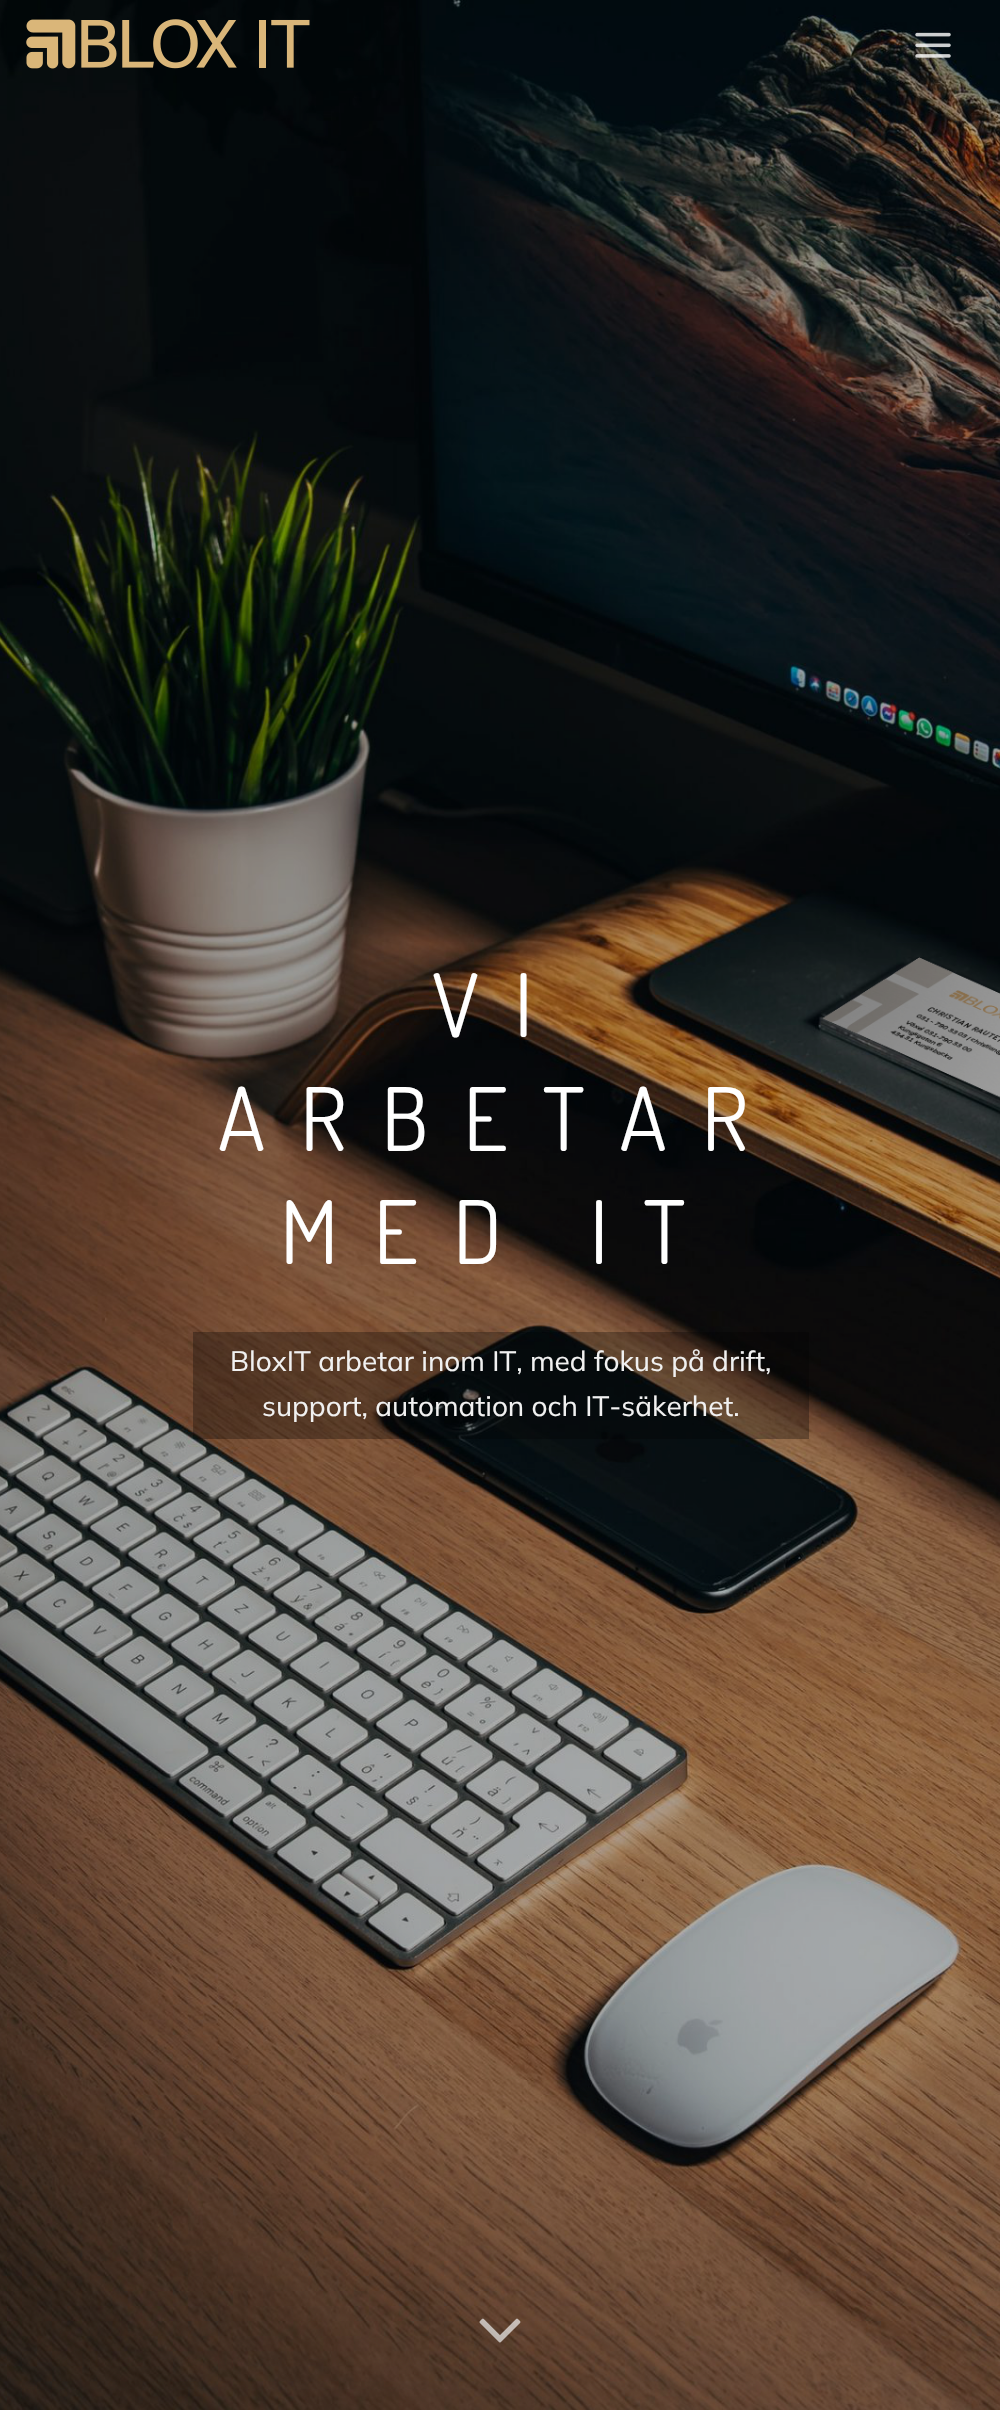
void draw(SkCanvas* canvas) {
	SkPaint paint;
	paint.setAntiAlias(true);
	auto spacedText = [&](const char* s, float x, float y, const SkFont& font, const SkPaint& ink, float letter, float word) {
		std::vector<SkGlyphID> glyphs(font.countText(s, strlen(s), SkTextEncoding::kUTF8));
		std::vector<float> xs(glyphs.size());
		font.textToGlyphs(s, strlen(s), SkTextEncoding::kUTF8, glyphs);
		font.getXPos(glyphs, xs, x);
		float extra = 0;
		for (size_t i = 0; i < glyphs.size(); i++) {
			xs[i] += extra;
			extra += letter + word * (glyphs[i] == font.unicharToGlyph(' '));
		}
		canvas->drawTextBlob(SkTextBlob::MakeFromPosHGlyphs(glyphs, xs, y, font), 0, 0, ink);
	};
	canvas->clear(0xffffffff);
	canvas->drawImageRect(SkImages::DeferredFromEncodedData(SkData::MakeFromFileName("img3.png")), SkRect::MakeXYWH(0, 0, 1000, 2410), SkSamplingOptions());
	canvas->drawImageRect(SkImages::DeferredFromEncodedData(SkData::MakeFromFileName("img1.png")), SkRect::MakeXYWH(26, 19, 284, 50), SkSamplingOptions());
	canvas->drawImageRect(SkImages::DeferredFromEncodedData(SkData::MakeFromFileName("img2.png")), SkRect::MakeXYWH(915, 32, 36, 26), SkSamplingOptions());
	canvas->drawImageRect(SkImages::DeferredFromEncodedData(SkData::MakeFromFileName("img4.png")), SkRect::MakeXYWH(479, 2318, 42, 25), SkSamplingOptions());
	SkFont f1(fontMgr->matchFamilyStyle("Dosis", SkFontStyle::Normal()), 87.5);
	f1.setSubpixel(true);
	paint.setColor(0xffffffff);
	spacedText("VI", 432, 1037, f1, paint, 35, 0);
	spacedText("ARBETAR", 218, 1151, f1, paint, 35, 0);
	spacedText("MED IT", 280, 1264, f1, paint, 35, 0);
	paint.setColor(0x4d000000);
	canvas->drawRect(SkRect::MakeXYWH(193, 1332, 616, 107), paint);
	SkFont f2(fontMgr->matchFamilyStyle("Mulish", SkFontStyle(200, SkFontStyle::kNormal_Width, SkFontStyle::kUpright_Slant)), 28);
	f2.setSubpixel(true);
	paint.setColor(0xfff1f1f1);
	canvas->drawString("BloxIT arbetar inom IT, med fokus på drift,", 230, 1371, f2, paint);
	canvas->drawString("support, automation och IT-säkerhet.", 262, 1416, f2, paint);
}
